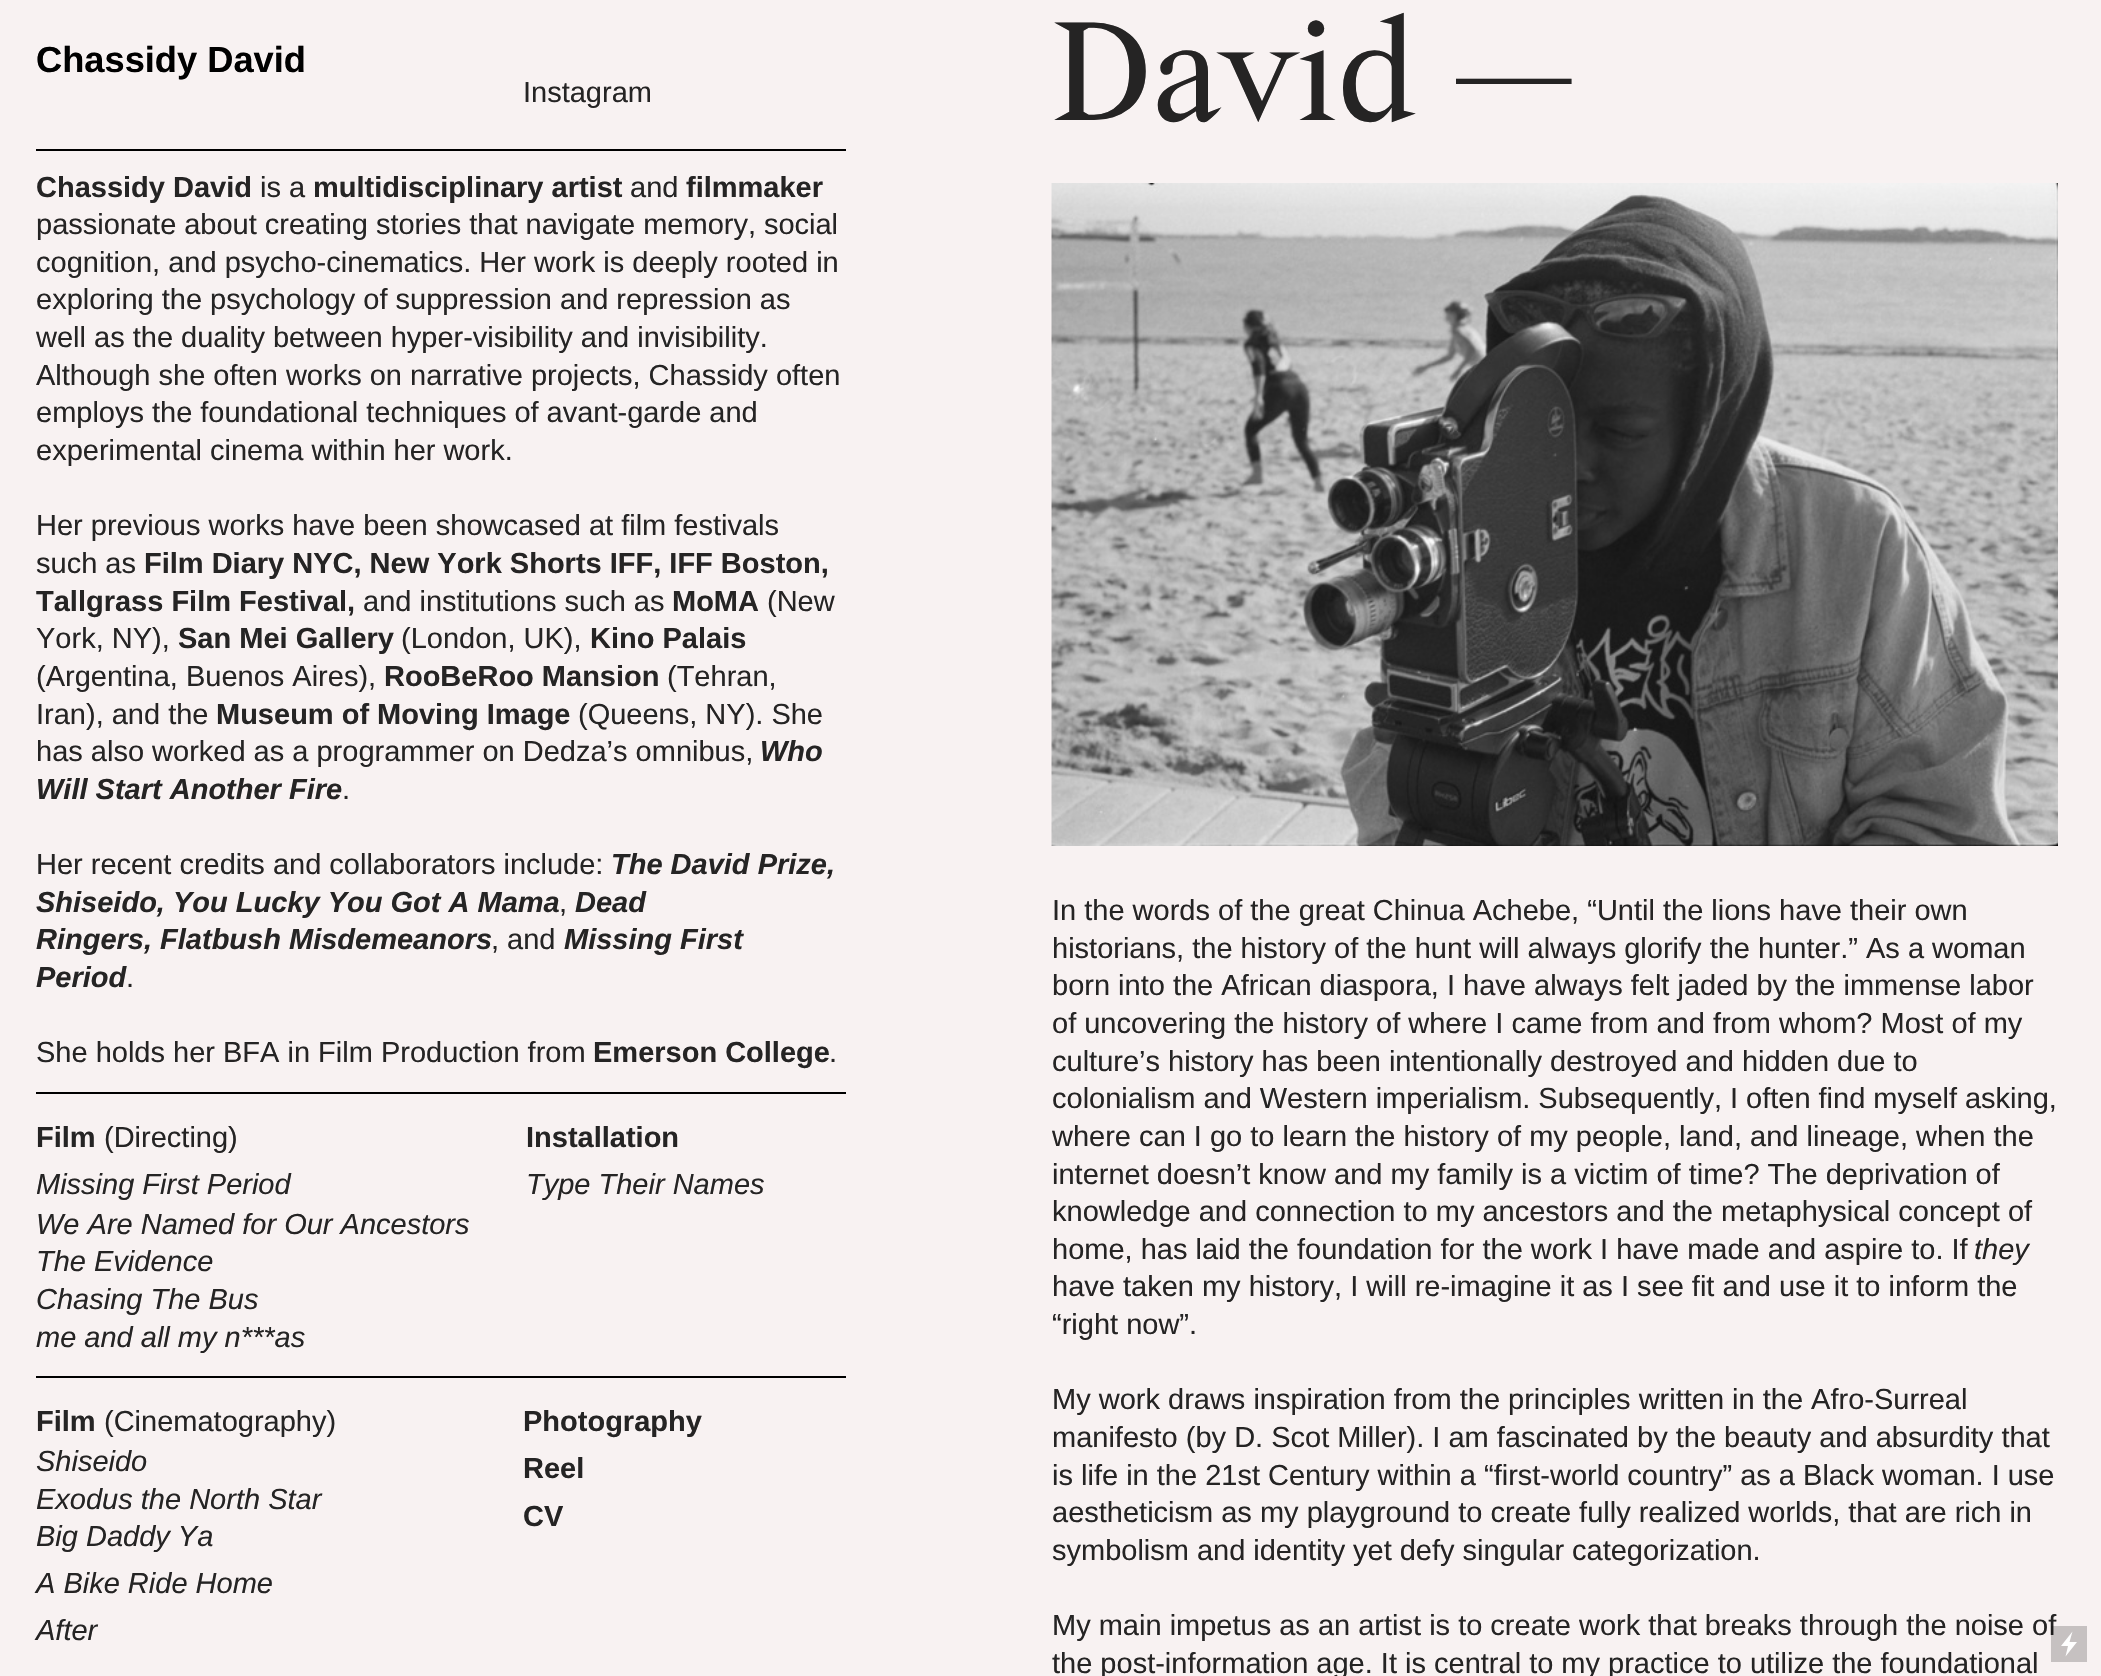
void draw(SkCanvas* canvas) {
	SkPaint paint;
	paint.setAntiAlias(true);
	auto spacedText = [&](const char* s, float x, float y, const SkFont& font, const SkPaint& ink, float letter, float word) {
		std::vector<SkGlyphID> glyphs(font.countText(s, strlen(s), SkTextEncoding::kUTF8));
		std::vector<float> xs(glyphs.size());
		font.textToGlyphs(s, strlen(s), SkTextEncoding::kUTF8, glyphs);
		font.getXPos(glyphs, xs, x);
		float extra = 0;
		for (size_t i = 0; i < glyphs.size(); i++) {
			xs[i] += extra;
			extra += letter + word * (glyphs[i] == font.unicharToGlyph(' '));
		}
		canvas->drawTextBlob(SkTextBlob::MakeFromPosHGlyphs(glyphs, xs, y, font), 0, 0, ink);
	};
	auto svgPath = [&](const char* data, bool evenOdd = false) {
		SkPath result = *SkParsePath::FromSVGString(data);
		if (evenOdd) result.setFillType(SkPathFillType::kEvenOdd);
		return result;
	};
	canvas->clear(0xfff8f2f2);
	SkFont f1(fontMgr->matchFamilyStyle("Liberation Sans", SkFontStyle::Bold()), 36.25);
	f1.setSubpixel(true);
	paint.setColor(0xff000000);
	canvas->drawString("Chassidy David", 36, 72, f1, paint);
	SkFont f2(fontMgr->matchFamilyStyle("Liberation Sans", SkFontStyle::Normal()), 29);
	f2.setSubpixel(true);
	paint.setColor(0xff252424);
	canvas->drawString("Instagram", 523, 102, f2, paint);
	paint.setColor(0xff000000);
	canvas->drawRect(SkRect::MakeXYWH(36, 149, 810, 2), paint);
	SkFont f3(fontMgr->matchFamilyStyle("Liberation Sans", SkFontStyle::Bold()), 29);
	f3.setSubpixel(true);
	paint.setColor(0xff252424);
	canvas->drawString("Chassidy David", 36, 197, f3, paint);
	canvas->drawString("is a", 260, 197, f2, paint);
	canvas->drawString("multidisciplinary artist", 313, 197, f3, paint);
	canvas->drawString("and", 630, 197, f2, paint);
	canvas->drawString("filmmaker", 686, 197, f3, paint);
	spacedText("passionate about creating stories that navigate memory, social", 36, 234, f2, paint, 0, -0.1);
	canvas->drawString("cognition, and psycho-cinematics. Her work is deeply rooted in", 36, 272, f2, paint);
	canvas->drawString("exploring the psychology of suppression and repression as", 36, 309, f2, paint);
	canvas->drawString("well as the duality between hyper-visibility and invisibility.", 36, 347, f2, paint);
	canvas->drawString("Although she often works on narrative projects, Chassidy often", 36, 385, f2, paint);
	spacedText("employs the foundational techniques of avant-garde and", 36, 422, f2, paint, 0, -0.1);
	spacedText("experimental cinema within her work.", 36, 460, f2, paint, 0, -0.1);
	canvas->drawString("Her previous works have been showcased at film festivals", 36, 535, f2, paint);
	canvas->drawString("such as", 36, 573, f2, paint);
	canvas->drawString("Film Diary NYC, New York Shorts IFF, IFF Boston,", 144, 573, f3, paint);
	canvas->drawString("Tallgrass Film Festival,", 36, 611, f3, paint);
	canvas->drawString("and institutions such as", 363, 611, f2, paint);
	canvas->drawString("MoMA", 672, 611, f3, paint);
	canvas->drawString("(New", 767, 611, f2, paint);
	canvas->drawString("York, NY),", 36, 648, f2, paint);
	canvas->drawString("San Mei Gallery", 178, 648, f3, paint);
	canvas->drawString("(London, UK),", 401, 648, f2, paint);
	canvas->drawString("Kino Palais", 590, 648, f3, paint);
	canvas->drawString("(Argentina, Buenos Aires),", 36, 686, f2, paint);
	canvas->drawString("RooBeRoo Mansion", 384, 686, f3, paint);
	canvas->drawString("(Tehran,", 667, 686, f2, paint);
	canvas->drawString("Iran), and the", 36, 724, f2, paint);
	canvas->drawString("Museum of Moving Image", 216, 724, f3, paint);
	canvas->drawString("(Queens, NY). She", 578, 724, f2, paint);
	canvas->drawString("has also worked as a programmer on Dedza’s omnibus,", 36, 761, f2, paint);
	SkFont f4(fontMgr->matchFamilyStyle("Liberation Sans", SkFontStyle::BoldItalic()), 29);
	f4.setSubpixel(true);
	canvas->drawString("Who", 760, 761, f4, paint);
	canvas->drawString("Will Start Another Fire", 36, 799, f4, paint);
	canvas->drawString(".", 342, 799, f2, paint);
	canvas->drawString("Her recent credits and collaborators include:", 36, 874, f2, paint);
	canvas->drawString("The David Prize,", 611, 874, f4, paint);
	canvas->drawString("Shiseido, You Lucky You Got A Mama", 36, 912, f4, paint);
	canvas->drawString(",", 559, 912, f2, paint);
	canvas->drawString("Dead", 575, 912, f4, paint);
	canvas->drawString("Ringers, Flatbush Misdemeanors", 36, 949, f4, paint);
	canvas->drawString(", and", 491, 949, f2, paint);
	canvas->drawString("Missing First", 564, 949, f4, paint);
	canvas->drawString("Period", 36, 987, f4, paint);
	canvas->drawString(".", 126, 987, f2, paint);
	canvas->drawString("She holds her BFA in Film Production from", 36, 1062, f2, paint);
	canvas->drawString("Emerson College", 593, 1062, f3, paint);
	canvas->drawString(".", 829, 1062, f2, paint);
	paint.setColor(0xff000000);
	canvas->drawRect(SkRect::MakeXYWH(36, 1092, 810, 2), paint);
	paint.setColor(0xff252424);
	canvas->drawString("Film", 36, 1147, f3, paint);
	canvas->drawString("(Directing)", 104, 1147, f2, paint);
	SkFont f5(fontMgr->matchFamilyStyle("Liberation Sans", SkFontStyle::Italic()), 29);
	f5.setSubpixel(true);
	canvas->drawString("Missing First Period", 36, 1194, f5, paint);
	canvas->drawString("We Are Named for Our Ancestors", 36, 1234, f5, paint);
	canvas->drawString("The Evidence", 36, 1271, f5, paint);
	canvas->drawString("Chasing The Bus", 36, 1309, f5, paint);
	canvas->drawString("me and all my n***as", 36, 1347, f5, paint);
	canvas->drawString("Installation", 526, 1147, f3, paint);
	canvas->drawString("Type Their Names", 526, 1194, f5, paint);
	paint.setColor(0xff000000);
	canvas->drawRect(SkRect::MakeXYWH(36, 1376, 810, 2), paint);
	paint.setColor(0xff252424);
	canvas->drawString("Film", 36, 1431, f3, paint);
	canvas->drawString("(Cinematography)", 104, 1431, f2, paint);
	canvas->drawString("Shiseido", 36, 1471, f5, paint);
	canvas->drawString("Exodus the North Star", 36, 1509, f5, paint);
	canvas->drawString("Big Daddy Ya", 36, 1546, f5, paint);
	canvas->drawString("A Bike Ride Home", 36, 1593, f5, paint);
	canvas->drawString("After", 36, 1640, f5, paint);
	canvas->drawString("Photography", 523, 1431, f3, paint);
	canvas->drawString("Reel", 523, 1478, f3, paint);
	canvas->drawString("CV", 523, 1526, f3, paint);
	SkFont f6(fontMgr->matchFamilyStyle("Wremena", SkFontStyle::Normal()), 150);
	f6.setSubpixel(true);
	canvas->drawString("David", 1052, 120, f6, paint);
	SkFont f7(fontMgr->matchFamilyStyle("Wremena", SkFontStyle(300, SkFontStyle::kNormal_Width, SkFontStyle::kUpright_Slant)), 150);
	f7.setSubpixel(true);
	canvas->drawString("—", 1456, 120, f7, paint);
	canvas->drawImageRect(SkImages::DeferredFromEncodedData(SkData::MakeFromFileName("img1.png")), SkRect::MakeXYWH(1051, 183, 1007, 663), SkSamplingOptions());
	canvas->drawString("In the words of the great Chinua Achebe, “Until the lions have their own", 1052, 920, f2, paint);
	canvas->drawString("historians, the history of the hunt will always glorify the hunter.” As a woman", 1052, 958, f2, paint);
	canvas->drawString("born into the African diaspora, I have always felt jaded by the immense labor", 1052, 995, f2, paint);
	canvas->drawString("of uncovering the history of where I came from and from whom? Most of my", 1052, 1033, f2, paint);
	canvas->drawString("culture’s history has been intentionally destroyed and hidden due to", 1052, 1071, f2, paint);
	spacedText("colonialism and Western imperialism. Subsequently, I often find myself asking,", 1052, 1108, f2, paint, 0, -0.1);
	canvas->drawString("where can I go to learn the history of my people, land, and lineage, when the", 1052, 1146, f2, paint);
	canvas->drawString("internet doesn’t know and my family is a victim of time? The deprivation of", 1052, 1184, f2, paint);
	canvas->drawString("knowledge and connection to my ancestors and the metaphysical concept of", 1052, 1221, f2, paint);
	canvas->drawString("home, has laid the foundation for the work I have made and aspire to. If", 1052, 1259, f2, paint);
	canvas->drawString("they", 1974, 1259, f5, paint);
	canvas->drawString("have taken my history, I will re-imagine it as I see fit and use it to inform the", 1052, 1296, f2, paint);
	canvas->drawString("“right now”.", 1052, 1334, f2, paint);
	canvas->drawString("My work draws inspiration from the principles written in the Afro-Surreal", 1052, 1409, f2, paint);
	canvas->drawString("manifesto (by D. Scot Miller). I am fascinated by the beauty and absurdity that", 1052, 1447, f2, paint);
	canvas->drawString("is life in the 21st Century within a “first-world country” as a Black woman. I use", 1052, 1485, f2, paint);
	canvas->drawString("aestheticism as my playground to create fully realized worlds, that are rich in", 1052, 1522, f2, paint);
	spacedText("symbolism and identity yet defy singular categorization.", 1052, 1560, f2, paint, 0, -0.1);
	canvas->drawString("My main impetus as an artist is to create work that breaks through the noise of", 1052, 1635, f2, paint);
	canvas->drawString("the post-information age. It is central to my practice to utilize the foundational", 1052, 1673, f2, paint);
	paint.setColor(0x33000000);
	canvas->drawRect(SkRect::MakeXYWH(2051, 1626, 36, 36), paint);
	paint.setColor(0xffffffff);
	canvas->drawPath(svgPath("M2077 1642H2069.5L2072.5 1631.5L2061 1646H2068L2065.5 1656.5Z"), paint);
}
